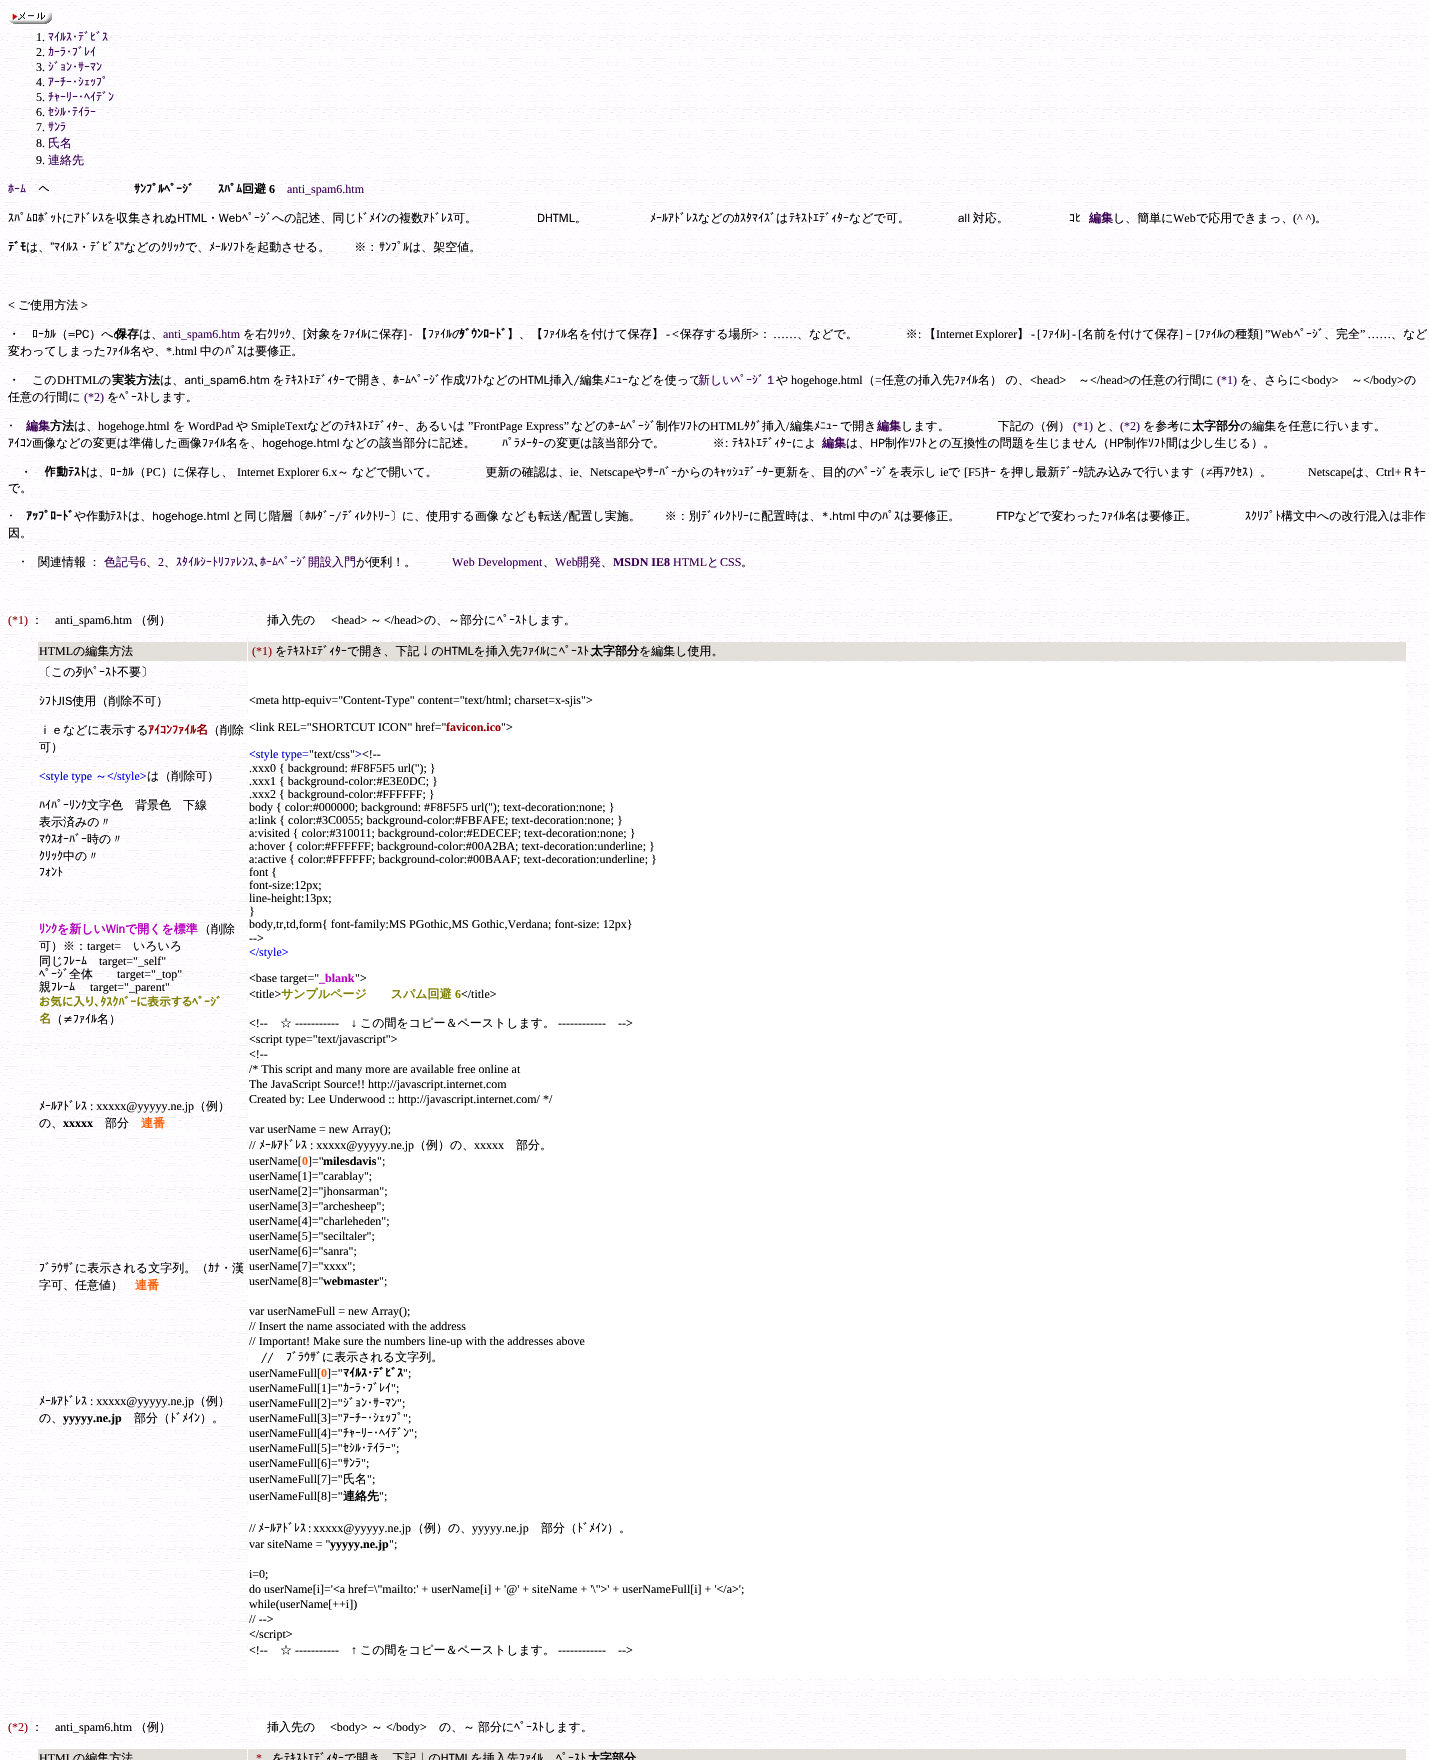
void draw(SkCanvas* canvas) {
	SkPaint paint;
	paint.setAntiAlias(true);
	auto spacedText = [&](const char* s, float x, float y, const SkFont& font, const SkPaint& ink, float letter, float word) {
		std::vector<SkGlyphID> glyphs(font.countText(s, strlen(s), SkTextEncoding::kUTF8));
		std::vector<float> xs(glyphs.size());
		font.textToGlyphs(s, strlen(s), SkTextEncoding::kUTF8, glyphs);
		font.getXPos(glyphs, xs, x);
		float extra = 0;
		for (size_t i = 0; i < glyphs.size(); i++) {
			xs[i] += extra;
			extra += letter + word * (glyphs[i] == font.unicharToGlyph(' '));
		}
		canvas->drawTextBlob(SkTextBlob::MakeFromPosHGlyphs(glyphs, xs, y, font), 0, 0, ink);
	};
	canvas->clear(0xffffffff);
	canvas->drawImageRect(SkImages::DeferredFromEncodedData(SkData::MakeFromFileName("img1.png")), SkRect::MakeXYWH(0, 0, 1429, 1760), SkSamplingOptions());
	canvas->drawImageRect(SkImages::DeferredFromEncodedData(SkData::MakeFromFileName("img2.png")), SkRect::MakeXYWH(8, 9, 44, 15), SkSamplingOptions());
	SkFont f1(fontMgr->matchFamilyStyle("Liberation Serif", SkFontStyle::Normal()), 12);
	f1.setSubpixel(true);
	paint.setColor(0xff000000);
	canvas->drawString("1.", 36, 41, f1, paint);
	paint.setColor(0xfffbfafe);
	canvas->drawRect(SkRect::MakeXYWH(48, 30, 60, 14), paint);
	SkFont f2(fontMgr->matchFamilyStyle("IPAPGothic", SkFontStyle::Normal()), 12);
	f2.setSubpixel(true);
	paint.setColor(0xff3c0055);
	canvas->drawString("ﾏｲﾙｽ・ﾃﾞﾋﾞｽ", 48, 41, f2, paint);
	paint.setColor(0xff000000);
	canvas->drawString("2.", 36, 56, f1, paint);
	paint.setColor(0xfffbfafe);
	canvas->drawRect(SkRect::MakeXYWH(48, 45, 48, 14), paint);
	paint.setColor(0xff3c0055);
	canvas->drawString("ｶｰﾗ・ﾌﾞﾚｲ", 48, 56, f2, paint);
	paint.setColor(0xff000000);
	canvas->drawString("3.", 36, 71, f1, paint);
	paint.setColor(0xfffbfafe);
	canvas->drawRect(SkRect::MakeXYWH(48, 60, 54, 14), paint);
	paint.setColor(0xff3c0055);
	canvas->drawString("ｼﾞｮﾝ・ｻｰﾏﾝ", 48, 71, f2, paint);
	paint.setColor(0xff000000);
	canvas->drawString("4.", 36, 86, f1, paint);
	paint.setColor(0xfffbfafe);
	canvas->drawRect(SkRect::MakeXYWH(48, 75, 60, 14), paint);
	paint.setColor(0xff3c0055);
	canvas->drawString("ｱｰﾁｰ・ｼｪｯﾌﾟ", 48, 86, f2, paint);
	paint.setColor(0xff000000);
	canvas->drawString("5.", 36, 101, f1, paint);
	paint.setColor(0xfffbfafe);
	canvas->drawRect(SkRect::MakeXYWH(48, 90, 66, 14), paint);
	paint.setColor(0xff3c0055);
	canvas->drawString("ﾁｬｰﾘｰ・ﾍｲﾃﾞﾝ", 48, 101, f2, paint);
	paint.setColor(0xff000000);
	canvas->drawString("6.", 36, 116, f1, paint);
	paint.setColor(0xfffbfafe);
	canvas->drawRect(SkRect::MakeXYWH(48, 105, 48, 14), paint);
	paint.setColor(0xff3c0055);
	canvas->drawString("ｾｼﾙ・ﾃｲﾗｰ", 48, 116, f2, paint);
	paint.setColor(0xff000000);
	canvas->drawString("7.", 36, 131, f1, paint);
	paint.setColor(0xfffbfafe);
	canvas->drawRect(SkRect::MakeXYWH(48, 120, 18, 14), paint);
	paint.setColor(0xff3c0055);
	canvas->drawString("ｻﾝﾗ", 48, 131, f2, paint);
	paint.setColor(0xff000000);
	canvas->drawString("8.", 36, 147, f1, paint);
	paint.setColor(0xfffbfafe);
	canvas->drawRect(SkRect::MakeXYWH(48, 136, 24, 14), paint);
	SkFont f3(fontMgr->matchFamilyStyle("WenQuanYi Zen Hei", SkFontStyle(500, SkFontStyle::kNormal_Width, SkFontStyle::kUpright_Slant)), 12);
	f3.setSubpixel(true);
	paint.setColor(0xff3c0055);
	canvas->drawString("氏名", 48, 147, f3, paint);
	paint.setColor(0xff000000);
	canvas->drawString("9.", 36, 164, f1, paint);
	paint.setColor(0xfffbfafe);
	canvas->drawRect(SkRect::MakeXYWH(48, 153, 36, 14), paint);
	paint.setColor(0xff3c0055);
	canvas->drawString("連絡先", 48, 164, f3, paint);
	paint.setColor(0xfffbfafe);
	canvas->drawRect(SkRect::MakeXYWH(8, 182, 18, 14), paint);
	paint.setColor(0xff3c0055);
	canvas->drawString("ﾎｰﾑ", 8, 193, f2, paint);
	paint.setColor(0xff000000);
	canvas->drawString("へ", 38, 193, f2, paint);
	SkFont f4(fontMgr->matchFamilyStyle("IPAPGothic", SkFontStyle::Bold()), 12);
	f4.setSubpixel(true);
	canvas->drawString("ｻﾝﾌﾟﾙﾍﾟｰｼﾞ　　ｽﾊﾟﾑ回避", 134, 193, f4, paint);
	SkFont f5(fontMgr->matchFamilyStyle("Liberation Serif", SkFontStyle::Bold()), 12);
	f5.setSubpixel(true);
	canvas->drawString("6", 269, 193, f5, paint);
	paint.setColor(0xfffbfafe);
	canvas->drawRect(SkRect::MakeXYWH(287, 182, 77, 14), paint);
	paint.setColor(0xff3c0055);
	canvas->drawString("anti_spam6.htm", 287, 193, f1, paint);
	paint.setColor(0xff000000);
	canvas->drawString("ｽﾊﾟﾑﾛﾎﾞｯﾄ", 8, 222, f2, paint);
	canvas->drawString("に", 62, 222, f3, paint);
	canvas->drawString("ｱﾄﾞﾚｽ", 74, 222, f2, paint);
	canvas->drawString("を収集されぬHTML・Web", 104, 222, f3, paint);
	canvas->drawString("ﾍﾟｰｼﾞ", 242, 222, f2, paint);
	canvas->drawString("への記述、同じ", 272, 222, f3, paint);
	canvas->drawString("ﾄﾞﾒｲﾝ", 357, 222, f2, paint);
	canvas->drawString("の複数", 387, 222, f3, paint);
	canvas->drawString("ｱﾄﾞﾚｽ", 423, 222, f2, paint);
	canvas->drawString("可。　　　　　DHTML。", 453, 222, f3, paint);
	canvas->drawString("ﾒｰﾙｱﾄﾞﾚｽ", 650, 222, f2, paint);
	canvas->drawString("などの", 698, 222, f3, paint);
	canvas->drawString("ｶｽﾀﾏｲｽﾞ", 734, 222, f2, paint);
	canvas->drawString("は", 776, 222, f3, paint);
	canvas->drawString("ﾃｷｽﾄｴﾃﾞｨﾀｰ", 789, 222, f2, paint);
	spacedText("などで可。　　　　all 対応。", 849, 222, f3, paint, 0, -1);
	canvas->drawString("ｺﾋ", 1069, 222, f2, paint);
	paint.setColor(0xfffbfafe);
	canvas->drawRect(SkRect::MakeXYWH(1089, 211, 24, 14), paint);
	SkFont f6(fontMgr->matchFamilyStyle("WenQuanYi Zen Hei", SkFontStyle::Bold()), 12);
	f6.setSubpixel(true);
	paint.setColor(0xff3c0055);
	canvas->drawString("編集", 1089, 222, f6, paint);
	paint.setColor(0xff000000);
	canvas->drawString("し、簡単に", 1113, 222, f3, paint);
	canvas->drawString("Web", 1173, 222, f1, paint);
	canvas->drawString("で応用できまっ、", 1196, 222, f3, paint);
	canvas->drawString("(^ ^)", 1293, 222, f1, paint);
	canvas->drawString("。", 1315, 222, f3, paint);
	canvas->drawString("ﾃﾞﾓ", 8, 251, f4, paint);
	canvas->drawString("は、”", 26, 251, f3, paint);
	canvas->drawString("ﾏｲﾙｽ", 54, 251, f2, paint);
	canvas->drawString("・", 78, 251, f3, paint);
	canvas->drawString("ﾃﾞﾋﾞｽ", 90, 251, f2, paint);
	canvas->drawString("”などの", 120, 251, f3, paint);
	canvas->drawString("ｸﾘｯｸ", 161, 251, f2, paint);
	canvas->drawString("で、", 185, 251, f3, paint);
	canvas->drawString("ﾒｰﾙｿﾌﾄ", 209, 251, f2, paint);
	canvas->drawString("を起動させる。　　※：", 245, 251, f3, paint);
	canvas->drawString("ｻﾝﾌﾟﾙ", 379, 251, f2, paint);
	canvas->drawString("は、架空値。", 409, 251, f3, paint);
	canvas->drawString("<", 8, 309, f1, paint);
	canvas->drawString("ご使用方法", 18, 309, f3, paint);
	canvas->drawString(">", 81, 309, f1, paint);
	canvas->drawString("・", 8, 338, f3, paint);
	canvas->drawString("ﾛｰｶﾙ", 32, 338, f2, paint);
	canvas->drawString("（=PC）への", 56, 338, f3, paint);
	canvas->drawString("保存", 115, 338, f6, paint);
	canvas->drawString("は、", 139, 338, f3, paint);
	paint.setColor(0xfffbfafe);
	canvas->drawRect(SkRect::MakeXYWH(163, 327, 77, 14), paint);
	paint.setColor(0xff3c0055);
	canvas->drawString("anti_spam6.htm", 163, 338, f1, paint);
	paint.setColor(0xff000000);
	canvas->drawString("を右", 243, 338, f3, paint);
	canvas->drawString("ｸﾘｯｸ", 267, 338, f2, paint);
	canvas->drawString("、[対象を", 291, 338, f3, paint);
	canvas->drawString("ﾌｧｲﾙ", 343, 338, f2, paint);
	spacedText("に保存] - 【", 367, 338, f3, paint, 0, -1);
	canvas->drawString("ﾌｧｲﾙ", 428, 338, f2, paint);
	canvas->drawString("の", 452, 338, f3, paint);
	canvas->drawString("ﾀﾞｳﾝﾛｰﾄﾞ", 459, 338, f4, paint);
	canvas->drawString("】、【", 507, 338, f3, paint);
	canvas->drawString("ﾌｧｲﾙ", 543, 338, f2, paint);
	canvas->drawString("名を付けて保存】", 567, 338, f3, paint);
	spacedText("- <", 666, 338, f1, paint, 0, -1);
	canvas->drawString("保存する場所", 680, 338, f3, paint);
	canvas->drawString(">", 752, 338, f1, paint);
	canvas->drawString("：", 759, 338, f3, paint);
	canvas->drawString("、などで。　　　　※", 797, 338, f3, paint);
	canvas->drawString(":", 918, 338, f1, paint);
	canvas->drawString("【", 924, 338, f3, paint);
	spacedText("Internet Explorer", 936, 338, f1, paint, 0, -1);
	canvas->drawString("】", 1017, 338, f3, paint);
	spacedText("- [", 1031, 338, f1, paint, 0, -1);
	canvas->drawString("ﾌｧｲﾙ", 1042, 338, f2, paint);
	spacedText("] - [", 1066, 338, f1, paint, 0, -1);
	canvas->drawString("名前を付けて保存", 1082, 338, f3, paint);
	canvas->drawString("]", 1179, 338, f1, paint);
	canvas->drawString("－", 1183, 338, f3, paint);
	canvas->drawString("[", 1195, 338, f1, paint);
	canvas->drawString("ﾌｧｲﾙ", 1199, 338, f2, paint);
	canvas->drawString("の種類", 1223, 338, f3, paint);
	spacedText("] ”Web", 1259, 338, f1, paint, 0, -1);
	canvas->drawString("ﾍﾟｰｼﾞ", 1294, 338, f2, paint);
	canvas->drawString("、完全", 1324, 338, f3, paint);
	spacedText("” ……", 1360, 338, f1, paint, 0, -1);
	canvas->drawString("、など", 1391, 338, f3, paint);
	canvas->drawString("……", 773, 338, f1, paint);
	canvas->drawString("変わってしまった", 8, 355, f3, paint);
	canvas->drawString("ﾌｧｲﾙ", 106, 355, f2, paint);
	canvas->drawString("名や、", 130, 355, f3, paint);
	canvas->drawString("*.html", 166, 355, f1, paint);
	canvas->drawString("中の", 200, 355, f3, paint);
	canvas->drawString("ﾊﾟｽ", 225, 355, f2, paint);
	canvas->drawString("は要修正。", 243, 355, f3, paint);
	canvas->drawString("・　この", 8, 384, f3, paint);
	canvas->drawString("DHTML", 57, 384, f1, paint);
	canvas->drawString("の", 99, 384, f3, paint);
	canvas->drawString("実装方法", 112, 384, f6, paint);
	spacedText("は、anti_spam6.htm を", 160, 384, f3, paint, 0, -1);
	canvas->drawString("ﾃｷｽﾄｴﾃﾞｨﾀｰ", 285, 384, f2, paint);
	canvas->drawString("で開き、", 345, 384, f3, paint);
	canvas->drawString("ﾎｰﾑﾍﾟｰｼﾞ", 393, 384, f2, paint);
	canvas->drawString("作成", 441, 384, f3, paint);
	canvas->drawString("ｿﾌﾄ", 465, 384, f2, paint);
	canvas->drawString("などのHTML挿入/編集", 483, 384, f3, paint);
	canvas->drawString("ﾒﾆｭｰ", 604, 384, f2, paint);
	canvas->drawString("などを使って", 628, 384, f3, paint);
	paint.setColor(0xfffbfafe);
	canvas->drawRect(SkRect::MakeXYWH(698, 373, 75, 14), paint);
	paint.setColor(0xff3c0055);
	canvas->drawString("新しい", 698, 384, f3, paint);
	canvas->drawString("ﾍﾟｰｼﾞ", 734, 384, f2, paint);
	canvas->drawString("1", 767, 384, f3, paint);
	paint.setColor(0xff000000);
	canvas->drawString("や", 776, 384, f3, paint);
	canvas->drawString("hogehoge.html", 791, 384, f1, paint);
	canvas->drawString("（", 863, 384, f3, paint);
	canvas->drawString("=", 875, 384, f1, paint);
	canvas->drawString("任意の挿入先", 882, 384, f3, paint);
	canvas->drawString("ﾌｧｲﾙ", 954, 384, f2, paint);
	canvas->drawString("名） の、", 978, 384, f3, paint);
	paint.setColor(0xffffffff);
	canvas->drawRect(SkRect::MakeXYWH(1030, 373, 99, 14), paint);
	paint.setColor(0xff000000);
	canvas->drawString("<head>", 1030, 384, f1, paint);
	canvas->drawString("～", 1078, 384, f3, paint);
	canvas->drawString("</head>", 1090, 384, f1, paint);
	canvas->drawString("の任意の行間に", 1129, 384, f3, paint);
	paint.setColor(0xfffbfafe);
	canvas->drawRect(SkRect::MakeXYWH(1217, 373, 20, 14), paint);
	paint.setColor(0xff3c0055);
	canvas->drawString("(*1)", 1217, 384, f1, paint);
	paint.setColor(0xff000000);
	canvas->drawString("を、さらに", 1240, 384, f3, paint);
	paint.setColor(0xffffffff);
	canvas->drawRect(SkRect::MakeXYWH(1301, 373, 103, 14), paint);
	paint.setColor(0xff000000);
	canvas->drawString("<body>", 1301, 384, f1, paint);
	canvas->drawString("～", 1351, 384, f3, paint);
	canvas->drawString("</body>", 1363, 384, f1, paint);
	canvas->drawString("の", 1404, 384, f3, paint);
	canvas->drawString("任意の行間に", 8, 401, f3, paint);
	paint.setColor(0xfffbfafe);
	canvas->drawRect(SkRect::MakeXYWH(84, 390, 20, 14), paint);
	paint.setColor(0xff3c0055);
	canvas->drawString("(*2)", 84, 401, f1, paint);
	paint.setColor(0xff000000);
	canvas->drawString("を", 107, 401, f3, paint);
	canvas->drawString("ﾍﾟｰｽﾄ", 119, 401, f2, paint);
	canvas->drawString("します。", 149, 401, f3, paint);
	canvas->drawString("･", 8, 430, f2, paint);
	paint.setColor(0xfffbfafe);
	canvas->drawRect(SkRect::MakeXYWH(26, 419, 24, 14), paint);
	paint.setColor(0xff3c0055);
	canvas->drawString("編集", 26, 430, f6, paint);
	paint.setColor(0xff000000);
	canvas->drawString("方法", 50, 430, f6, paint);
	canvas->drawString("は、", 74, 430, f3, paint);
	canvas->drawString("hogehoge.html", 98, 430, f1, paint);
	canvas->drawString("を", 173, 430, f3, paint);
	canvas->drawString("WordPad", 188, 430, f1, paint);
	canvas->drawString("や", 236, 430, f3, paint);
	canvas->drawString("SmipleText", 251, 430, f1, paint);
	canvas->drawString("などの", 307, 430, f3, paint);
	canvas->drawString("ﾃｷｽﾄｴﾃﾞｨﾀｰ", 344, 430, f2, paint);
	canvas->drawString("、あるいは", 404, 430, f3, paint);
	canvas->drawString("”FrontPage Express”", 468, 430, f1, paint);
	canvas->drawString("などの", 571, 430, f3, paint);
	canvas->drawString("ﾎｰﾑﾍﾟｰｼﾞ", 608, 430, f2, paint);
	canvas->drawString("制作", 656, 430, f3, paint);
	canvas->drawString("ｿﾌﾄ", 680, 430, f2, paint);
	canvas->drawString("の", 698, 430, f3, paint);
	canvas->drawString("HTML", 710, 430, f1, paint);
	canvas->drawString("ﾀｸﾞ", 744, 430, f2, paint);
	canvas->drawString("挿入", 762, 430, f3, paint);
	canvas->drawString("/", 786, 430, f1, paint);
	canvas->drawString("編集", 790, 430, f3, paint);
	canvas->drawString("ﾒﾆｭｰ", 814, 430, f2, paint);
	canvas->drawString("で開き", 840, 430, f3, paint);
	paint.setColor(0xfffbfafe);
	canvas->drawRect(SkRect::MakeXYWH(877, 419, 24, 14), paint);
	paint.setColor(0xff3c0055);
	canvas->drawString("編集", 877, 430, f6, paint);
	paint.setColor(0xff000000);
	canvas->drawString("します。　　　　下記の（例）", 901, 430, f3, paint);
	paint.setColor(0xfffbfafe);
	canvas->drawRect(SkRect::MakeXYWH(1073, 419, 20, 14), paint);
	paint.setColor(0xff3c0055);
	canvas->drawString("(*1)", 1073, 430, f1, paint);
	paint.setColor(0xff000000);
	canvas->drawString("と、", 1096, 430, f3, paint);
	paint.setColor(0xfffbfafe);
	canvas->drawRect(SkRect::MakeXYWH(1120, 419, 20, 14), paint);
	paint.setColor(0xff3c0055);
	canvas->drawString("(*2)", 1120, 430, f1, paint);
	paint.setColor(0xff000000);
	canvas->drawString("を参考に", 1143, 430, f3, paint);
	canvas->drawString("太字部分", 1192, 430, f6, paint);
	canvas->drawString("の編集を任意に行います。", 1240, 430, f3, paint);
	canvas->drawString("ｱｲｺﾝ", 8, 447, f2, paint);
	canvas->drawString("画像などの変更は準備した画像", 32, 447, f3, paint);
	canvas->drawString("ﾌｧｲﾙ", 202, 447, f2, paint);
	spacedText("名を、hogehoge.html などの該当部分に記述。", 226, 447, f3, paint, 0, -1);
	canvas->drawString("ﾊﾟﾗﾒｰﾀｰ", 502, 447, f2, paint);
	canvas->drawString("の変更は該当部分で。　　　　※:", 544, 447, f3, paint);
	canvas->drawString("ﾃｷｽﾄｴﾃﾞｨﾀｰ", 732, 447, f2, paint);
	canvas->drawString("によ", 792, 447, f3, paint);
	paint.setColor(0xfffbfafe);
	canvas->drawRect(SkRect::MakeXYWH(822, 436, 24, 14), paint);
	paint.setColor(0xff3c0055);
	canvas->drawString("編集", 822, 447, f6, paint);
	paint.setColor(0xff000000);
	canvas->drawString("は、HP制作", 846, 447, f3, paint);
	canvas->drawString("ｿﾌﾄ", 909, 447, f2, paint);
	canvas->drawString("との互換性の問題を生じません（HP制作", 927, 447, f3, paint);
	canvas->drawString("ｿﾌﾄ", 1148, 447, f2, paint);
	canvas->drawString("間は少し生じる）。", 1166, 447, f3, paint);
	canvas->drawString("・", 20, 476, f3, paint);
	canvas->drawString("作動ﾃｽﾄ", 44, 476, f4, paint);
	canvas->drawString("は、", 86, 476, f3, paint);
	canvas->drawString("ﾛｰｶﾙ", 110, 476, f2, paint);
	canvas->drawString("（", 134, 476, f3, paint);
	canvas->drawString("PC", 146, 476, f1, paint);
	canvas->drawString("）に保存し、", 161, 476, f3, paint);
	canvas->drawString("Internet Explorer 6.x", 237, 476, f1, paint);
	canvas->drawString("～", 337, 476, f3, paint);
	canvas->drawString("などで開いて。　　　　更新の確認は、", 352, 476, f3, paint);
	canvas->drawString("ie", 570, 476, f1, paint);
	canvas->drawString("Netscape", 590, 476, f1, paint);
	canvas->drawString("や", 634, 476, f3, paint);
	canvas->drawString("ｻｰﾊﾞｰ", 647, 476, f2, paint);
	canvas->drawString("からの", 677, 476, f3, paint);
	canvas->drawString("ｷｬｯｼｭﾃﾞｰﾀｰ", 714, 476, f2, paint);
	canvas->drawString("更新を、目的の", 774, 476, f3, paint);
	canvas->drawString("ﾍﾟｰｼﾞ", 858, 476, f2, paint);
	canvas->drawString("を表示し", 888, 476, f3, paint);
	canvas->drawString("ie", 940, 476, f1, paint);
	canvas->drawString("で", 948, 476, f3, paint);
	canvas->drawString("[F5]", 964, 476, f1, paint);
	canvas->drawString("ｷｰ", 984, 476, f2, paint);
	canvas->drawString("を押し最新", 999, 476, f3, paint);
	canvas->drawString("ﾃﾞｰﾀ", 1060, 476, f2, paint);
	canvas->drawString("読み込みで行います（", 1084, 476, f3, paint);
	canvas->drawString("≠", 1206, 476, f1, paint);
	canvas->drawString("再", 1212, 476, f3, paint);
	canvas->drawString("ｱｸｾｽ", 1224, 476, f2, paint);
	canvas->drawString("）。", 1248, 476, f3, paint);
	canvas->drawString("Netscape", 1308, 476, f1, paint);
	canvas->drawString("は、", 1352, 476, f3, paint);
	canvas->drawString("Ctrl+", 1376, 476, f1, paint);
	canvas->drawString("Ｒ", 1402, 476, f3, paint);
	canvas->drawString("ｷｰ", 1414, 476, f2, paint);
	canvas->drawString("、", 578, 476, f3, paint);
	canvas->drawString("で。", 8, 492, f3, paint);
	canvas->drawString("･", 8, 520, f2, paint);
	canvas->drawString("ｱｯﾌﾟﾛｰﾄﾞ", 26, 520, f4, paint);
	canvas->drawString("や作動", 74, 520, f3, paint);
	canvas->drawString("ﾃｽﾄ", 110, 520, f2, paint);
	spacedText("は、hogehoge.html と同じ階層〔", 128, 520, f3, paint, 0, -1);
	canvas->drawString("ﾎﾙﾀﾞｰ", 305, 520, f2, paint);
	canvas->drawString("/", 335, 520, f3, paint);
	canvas->drawString("ﾃﾞｨﾚｸﾄﾘｰ", 342, 520, f2, paint);
	spacedText("〕に、使用する画像 なども転送/配置し実施。　　※：別", 390, 520, f3, paint, 0, -1);
	canvas->drawString("ﾃﾞｨﾚｸﾄﾘｰ", 701, 520, f2, paint);
	spacedText("に配置時は、*.html 中の", 749, 520, f3, paint, 0, -1);
	canvas->drawString("ﾊﾟｽ", 882, 520, f2, paint);
	canvas->drawString("は要修正。　　　FTPなどで変わった", 900, 520, f3, paint);
	canvas->drawString("ﾌｧｲﾙ", 1101, 520, f2, paint);
	canvas->drawString("名は要修正。", 1125, 520, f3, paint);
	canvas->drawString("ｽｸﾘﾌﾟﾄ", 1245, 520, f2, paint);
	canvas->drawString("構文中への改行混入は非作", 1281, 520, f3, paint);
	canvas->drawString("因。", 8, 537, f3, paint);
	canvas->drawString("･", 20, 566, f2, paint);
	spacedText("関連情報 ：", 38, 566, f3, paint, 0, -1);
	paint.setColor(0xfffbfafe);
	canvas->drawRect(SkRect::MakeXYWH(104, 555, 42, 14), paint);
	paint.setColor(0xff3c0055);
	canvas->drawString("色記号", 104, 566, f3, paint);
	canvas->drawString("6", 140, 566, f1, paint);
	paint.setColor(0xfffbfafe);
	canvas->drawRect(SkRect::MakeXYWH(158, 555, 6, 14), paint);
	paint.setColor(0xff3c0055);
	canvas->drawString("2", 158, 566, f1, paint);
	paint.setColor(0xfffbfafe);
	canvas->drawRect(SkRect::MakeXYWH(176, 555, 78, 14), paint);
	paint.setColor(0xff3c0055);
	canvas->drawString("ｽﾀｲﾙｼｰﾄﾘﾌｧﾚﾝｽ", 176, 566, f2, paint);
	paint.setColor(0xfffbfafe);
	canvas->drawRect(SkRect::MakeXYWH(260, 555, 96, 14), paint);
	paint.setColor(0xff3c0055);
	canvas->drawString("ﾎｰﾑﾍﾟｰｼﾞ", 260, 566, f2, paint);
	canvas->drawString("開設入門", 308, 566, f3, paint);
	paint.setColor(0xff000000);
	canvas->drawString("が便利！。", 356, 566, f3, paint);
	paint.setColor(0xfffbfafe);
	canvas->drawRect(SkRect::MakeXYWH(452, 555, 91, 14), paint);
	paint.setColor(0xff3c0055);
	canvas->drawString("Web Development", 452, 566, f1, paint);
	paint.setColor(0xfffbfafe);
	canvas->drawRect(SkRect::MakeXYWH(555, 555, 46, 14), paint);
	paint.setColor(0xff3c0055);
	canvas->drawString("Web", 555, 566, f1, paint);
	canvas->drawString("開発", 577, 566, f3, paint);
	paint.setColor(0xfffbfafe);
	canvas->drawRect(SkRect::MakeXYWH(613, 555, 57, 14), paint);
	paint.setColor(0xff3c0055);
	canvas->drawString("MSDN IE8", 613, 566, f5, paint);
	paint.setColor(0xfffbfafe);
	canvas->drawRect(SkRect::MakeXYWH(673, 555, 68, 14), paint);
	paint.setColor(0xff3c0055);
	canvas->drawString("HTML", 673, 566, f1, paint);
	canvas->drawString("と", 707, 566, f3, paint);
	canvas->drawString("CSS", 720, 566, f1, paint);
	paint.setColor(0xff000000);
	canvas->drawString("、", 146, 566, f3, paint);
	canvas->drawString("、", 164, 566, f3, paint);
	canvas->drawString("、", 254, 566, f2, paint);
	canvas->drawString("、", 543, 566, f3, paint);
	canvas->drawString("、", 601, 566, f3, paint);
	canvas->drawString("。", 741, 566, f3, paint);
	paint.setColor(0xff950007);
	canvas->drawString("(*1)", 8, 624, f1, paint);
	paint.setColor(0xff000000);
	canvas->drawString("：", 31, 624, f3, paint);
	canvas->drawString("anti_spam6.htm", 55, 624, f1, paint);
	canvas->drawString("（例）", 135, 624, f3, paint);
	paint.setColor(0xffffffff);
	canvas->drawRect(SkRect::MakeXYWH(267, 613, 36, 13), paint);
	paint.setColor(0xff000000);
	canvas->drawString("挿入先", 267, 624, f3, paint);
	paint.setColor(0xffffffff);
	canvas->drawRect(SkRect::MakeXYWH(303, 613, 121, 14), paint);
	paint.setColor(0xff000000);
	canvas->drawString("の", 303, 624, f3, paint);
	canvas->drawString("<head>", 331, 624, f1, paint);
	canvas->drawString("～", 370, 624, f3, paint);
	canvas->drawString("</head>", 384, 624, f1, paint);
	canvas->drawString("の、", 424, 624, f3, paint);
	paint.setColor(0xffffffff);
	canvas->drawRect(SkRect::MakeXYWH(448, 613, 12, 13), paint);
	paint.setColor(0xff000000);
	canvas->drawString("～部分に", 448, 624, f3, paint);
	canvas->drawString("ﾍﾟｰｽﾄ", 497, 624, f2, paint);
	canvas->drawString("します。", 527, 624, f3, paint);
	canvas->drawImageRect(SkImages::DeferredFromEncodedData(SkData::MakeFromFileName("img3.png")), SkRect::MakeXYWH(9, 642, 28, 19), SkSamplingOptions());
	paint.setColor(0xffe3e0dc);
	canvas->drawRect(SkRect::MakeXYWH(38, 642, 209, 19), paint);
	paint.setColor(0xff000000);
	canvas->drawString("HTML", 39, 655, f1, paint);
	canvas->drawString("の編集方法", 73, 655, f3, paint);
	paint.setColor(0xffe3e0dc);
	canvas->drawRect(SkRect::MakeXYWH(248, 642, 1158, 19), paint);
	paint.setColor(0xff950007);
	canvas->drawString("(*1)", 252, 655, f1, paint);
	paint.setColor(0xff000000);
	canvas->drawString("を", 275, 655, f3, paint);
	canvas->drawString("ﾃｷｽﾄｴﾃﾞｨﾀｰ", 287, 655, f2, paint);
	canvas->drawString("で開き、下記↓のHTMLを挿入先", 347, 655, f3, paint);
	canvas->drawString("ﾌｧｲﾙ", 522, 655, f2, paint);
	canvas->drawString("に", 546, 655, f3, paint);
	canvas->drawString("ﾍﾟｰｽﾄ", 559, 655, f2, paint);
	canvas->drawString("、", 589, 655, f3, paint);
	canvas->drawString("太字部分", 591, 655, f6, paint);
	canvas->drawString("を編集し使用。", 639, 655, f3, paint);
	canvas->drawString("〔この列", 39, 676, f3, paint);
	canvas->drawString("ﾍﾟｰｽﾄ", 87, 676, f2, paint);
	canvas->drawString("不要〕", 117, 676, f3, paint);
	canvas->drawString("ｼﾌﾄ", 39, 705, f2, paint);
	canvas->drawString("JIS使用（削除不可）", 57, 705, f3, paint);
	canvas->drawString("ｉｅなどに表示する", 39, 734, f3, paint);
	paint.setColor(0xff950007);
	canvas->drawString("ｱｲｺﾝﾌｧｲﾙ名", 148, 734, f4, paint);
	paint.setColor(0xff000000);
	canvas->drawString("（削除", 208, 734, f3, paint);
	canvas->drawString("可）", 39, 751, f3, paint);
	paint.setColor(0xff0000c0);
	canvas->drawString("<style type", 39, 780, f1, paint);
	canvas->drawString("～", 95, 780, f3, paint);
	paint.setColor(0xff0000ff);
	canvas->drawString("</style>", 107, 780, f1, paint);
	paint.setColor(0xff000000);
	canvas->drawString("は（削除可）", 147, 780, f3, paint);
	canvas->drawString("ﾊｲﾊﾟｰﾘﾝｸ", 39, 809, f2, paint);
	canvas->drawString("文字色　背景色　下線", 87, 809, f3, paint);
	canvas->drawString("表示済みの〃", 39, 826, f3, paint);
	canvas->drawString("ﾏｳｽｵｰﾊﾞｰ", 39, 843, f2, paint);
	canvas->drawString("時の〃", 87, 843, f3, paint);
	canvas->drawString("ｸﾘｯｸ", 39, 860, f2, paint);
	canvas->drawString("中の〃", 63, 860, f3, paint);
	canvas->drawString("ﾌｫﾝﾄ", 39, 876, f2, paint);
	paint.setColor(0xffb800c1);
	canvas->drawString("ﾘﾝｸ", 39, 933, f4, paint);
	canvas->drawString("を新しいWinで開くを標準", 57, 933, f6, paint);
	paint.setColor(0xff000000);
	canvas->drawString("（削除", 199, 933, f3, paint);
	canvas->drawString("可）※：", 39, 950, f3, paint);
	canvas->drawString("target=", 87, 950, f1, paint);
	canvas->drawString("いろいろ", 133, 950, f3, paint);
	canvas->drawString("同じ", 39, 965, f3, paint);
	canvas->drawString("ﾌﾚｰﾑ", 63, 965, f2, paint);
	canvas->drawString("target=\"_self\"", 99, 965, f1, paint);
	canvas->drawString("ﾍﾟｰｼﾞ", 39, 978, f2, paint);
	canvas->drawString("全体", 69, 978, f3, paint);
	canvas->drawString("target=\"_top\"", 117, 978, f1, paint);
	canvas->drawString("親", 39, 991, f3, paint);
	canvas->drawString("ﾌﾚｰﾑ", 51, 991, f2, paint);
	canvas->drawString("target=\"_parent\"", 90, 991, f1, paint);
	paint.setColor(0xff808000);
	canvas->drawString("お気に入り、ﾀｽｸﾊﾞｰに表示するﾍﾟｰｼﾞ", 39, 1006, f4, paint);
	canvas->drawString("名", 39, 1023, f4, paint);
	paint.setColor(0xff000000);
	canvas->drawString("（≠", 51, 1023, f3, paint);
	canvas->drawString("ﾌｧｲﾙ", 73, 1023, f2, paint);
	canvas->drawString("名）", 97, 1023, f3, paint);
	canvas->drawString("ﾒｰﾙｱﾄﾞﾚｽ", 39, 1110, f2, paint);
	canvas->drawString(": xxxxx@yyyyy.ne.jp", 90, 1110, f1, paint);
	canvas->drawString("（例）", 194, 1110, f3, paint);
	canvas->drawString("の、", 39, 1127, f3, paint);
	canvas->drawString("xxxxx", 63, 1127, f5, paint);
	canvas->drawString("部分", 105, 1127, f3, paint);
	paint.setColor(0xffff5e06);
	canvas->drawString("連番", 141, 1127, f6, paint);
	paint.setColor(0xff000000);
	canvas->drawString("ﾌﾞﾗｳｻﾞ", 39, 1272, f2, paint);
	canvas->drawString("に表示される文字列。（", 75, 1272, f3, paint);
	canvas->drawString("ｶﾅ", 208, 1272, f2, paint);
	canvas->drawString("・漢", 220, 1272, f3, paint);
	canvas->drawString("字可、任意値）", 39, 1289, f3, paint);
	paint.setColor(0xffff5e06);
	canvas->drawString("連番", 135, 1289, f6, paint);
	paint.setColor(0xff000000);
	canvas->drawString("ﾒｰﾙｱﾄﾞﾚｽ", 39, 1405, f2, paint);
	canvas->drawString(": xxxxx@yyyyy.ne.jp", 90, 1405, f1, paint);
	canvas->drawString("（例）", 194, 1405, f3, paint);
	canvas->drawString("の、", 39, 1422, f3, paint);
	canvas->drawString("yyyyy.ne.jp", 63, 1422, f5, paint);
	canvas->drawString("部分（", 134, 1422, f3, paint);
	canvas->drawString("ﾄﾞﾒｲﾝ", 170, 1422, f2, paint);
	canvas->drawString("）。", 200, 1422, f3, paint);
	paint.setColor(0xffffffff);
	canvas->drawRect(SkRect::MakeXYWH(248, 663, 1158, 1014), paint);
	paint.setColor(0xff000000);
	canvas->drawString("<meta http-equiv=\"Content-Type\" content=\"text/html; charset=x-sjis\">", 249, 704, f1, paint);
	canvas->drawString("<link REL=\"SHORTCUT ICON\" href=\"", 249, 731, f1, paint);
	paint.setColor(0xff950007);
	canvas->drawString("favicon.ico", 446, 731, f5, paint);
	paint.setColor(0xff000000);
	canvas->drawString("\">", 501, 731, f1, paint);
	paint.setColor(0xff0000c0);
	canvas->drawString("<style type=", 249, 758, f1, paint);
	paint.setColor(0xff000000);
	canvas->drawString("\"text/css\"", 309, 758, f1, paint);
	paint.setColor(0xff0000c0);
	canvas->drawString(">", 355, 758, f1, paint);
	paint.setColor(0xff000000);
	canvas->drawString("<!--", 362, 758, f1, paint);
	canvas->drawString(".xxx0 { background: #F8F5F5 url(''); }", 249, 772, f1, paint);
	canvas->drawString(".xxx1 { background-color:#E3E0DC; }", 249, 785, f1, paint);
	canvas->drawString(".xxx2 { background-color:#FFFFFF; }", 249, 798, f1, paint);
	canvas->drawString("body { color:#000000; background: #F8F5F5 url(''); text-decoration:none; }", 249, 811, f1, paint);
	canvas->drawString("a:link { color:#3C0055; background-color:#FBFAFE; text-decoration:none; }", 249, 824, f1, paint);
	canvas->drawString("a:visited { color:#310011; background-color:#EDECEF; text-decoration:none; }", 249, 837, f1, paint);
	canvas->drawString("a:hover { color:#FFFFFF; background-color:#00A2BA; text-decoration:underline; }", 249, 850, f1, paint);
	canvas->drawString("a:active { color:#FFFFFF; background-color:#00BAAF; text-decoration:underline; }", 249, 863, f1, paint);
	canvas->drawString("font {", 249, 876, f1, paint);
	canvas->drawString("font-size:12px;", 249, 889, f1, paint);
	canvas->drawString("line-height:13px;", 249, 902, f1, paint);
	canvas->drawString("}", 249, 915, f1, paint);
	canvas->drawString("body,tr,td,form{ font-family:MS PGothic,MS Gothic,Verdana; font-size: 12px}", 249, 928, f1, paint);
	canvas->drawString("-->", 249, 942, f1, paint);
	paint.setColor(0xff0000ff);
	canvas->drawString("</style>", 249, 956, f1, paint);
	paint.setColor(0xff000000);
	canvas->drawString("<base target=\"", 249, 982, f1, paint);
	paint.setColor(0xffb800c1);
	canvas->drawString("_blank", 319, 982, f5, paint);
	paint.setColor(0xff000000);
	canvas->drawString("\">", 355, 982, f1, paint);
	canvas->drawString("<title>", 249, 998, f1, paint);
	paint.setColor(0xff808000);
	canvas->drawString("サンプルページ　　スパム回避", 281, 998, f6, paint);
	canvas->drawString("6", 455, 998, f5, paint);
	paint.setColor(0xff000000);
	canvas->drawString("</title>", 461, 998, f1, paint);
	canvas->drawString("<!--", 249, 1027, f1, paint);
	canvas->drawString("☆", 280, 1027, f3, paint);
	canvas->drawString("-----------", 295, 1027, f1, paint);
	canvas->drawString("↓", 351, 1027, f1, paint);
	canvas->drawString("この間をコピー＆ペーストします。", 360, 1027, f3, paint);
	canvas->drawString("------------", 558, 1027, f1, paint);
	canvas->drawString("-->", 618, 1027, f1, paint);
	canvas->drawString("<script type=\"text/javascript\">", 249, 1043, f1, paint);
	canvas->drawString("<!--", 249, 1058, f1, paint);
	canvas->drawString("/* This script and many more are available free online at", 249, 1073, f1, paint);
	canvas->drawString("The JavaScript Source!! http://javascript.internet.com", 249, 1088, f1, paint);
	canvas->drawString("Created by: Lee Underwood :: http://javascript.internet.com/ */", 249, 1103, f1, paint);
	canvas->drawString("var userName = new Array();", 249, 1133, f1, paint);
	canvas->drawString("//", 249, 1149, f1, paint);
	canvas->drawString("ﾒｰﾙｱﾄﾞﾚｽ", 259, 1149, f2, paint);
	canvas->drawString(": xxxxx@yyyyy.ne.jp", 310, 1149, f1, paint);
	canvas->drawString("（例）の、", 414, 1149, f3, paint);
	canvas->drawString("xxxxx", 474, 1149, f1, paint);
	canvas->drawString("部分。", 516, 1149, f3, paint);
	canvas->drawString("userName[", 249, 1165, f1, paint);
	paint.setColor(0xffff5e06);
	canvas->drawString("0", 302, 1165, f5, paint);
	paint.setColor(0xff000000);
	canvas->drawString("]=\"", 308, 1165, f1, paint);
	canvas->drawString("milesdavis", 323, 1165, f5, paint);
	canvas->drawString("\";", 377, 1165, f1, paint);
	canvas->drawString("userName[1]=\"carablay\";", 249, 1180, f1, paint);
	canvas->drawString("userName[2]=\"jhonsarman\";", 249, 1195, f1, paint);
	canvas->drawString("userName[3]=\"archesheep\";", 249, 1210, f1, paint);
	canvas->drawString("userName[4]=\"charleheden\";", 249, 1225, f1, paint);
	canvas->drawString("userName[5]=\"seciltaler\";", 249, 1240, f1, paint);
	canvas->drawString("userName[6]=\"sanra\";", 249, 1255, f1, paint);
	canvas->drawString("userName[7]=\"xxxx\";", 249, 1270, f1, paint);
	canvas->drawString("userName[8]=\"", 249, 1285, f1, paint);
	canvas->drawString("webmaster", 323, 1285, f5, paint);
	canvas->drawString("\";", 379, 1285, f1, paint);
	canvas->drawString("var userNameFull = new Array();", 249, 1315, f1, paint);
	canvas->drawString("// Insert the name associated with the address", 249, 1330, f1, paint);
	canvas->drawString("// Important! Make sure the numbers line-up with the addresses above", 249, 1345, f1, paint);
	canvas->drawString("//", 261, 1361, f3, paint);
	canvas->drawString("ﾌﾞﾗｳｻﾞ", 286, 1361, f2, paint);
	canvas->drawString("に表示される文字列。", 322, 1361, f3, paint);
	canvas->drawString("userNameFull[", 249, 1377, f1, paint);
	paint.setColor(0xffff5e06);
	canvas->drawString("0", 321, 1377, f5, paint);
	paint.setColor(0xff000000);
	canvas->drawString("]=\"", 327, 1377, f1, paint);
	canvas->drawString("ﾏｲﾙｽ・ﾃﾞﾋﾞｽ", 343, 1377, f4, paint);
	canvas->drawString("\";", 403, 1377, f1, paint);
	canvas->drawString("userNameFull[1]=\"", 249, 1392, f1, paint);
	canvas->drawString("ｶｰﾗ・ﾌﾞﾚｲ", 343, 1392, f2, paint);
	canvas->drawString("\";", 391, 1392, f1, paint);
	canvas->drawString("userNameFull[2]=\"", 249, 1407, f1, paint);
	canvas->drawString("ｼﾞｮﾝ・ｻｰﾏﾝ", 343, 1407, f2, paint);
	canvas->drawString("\";", 397, 1407, f1, paint);
	canvas->drawString("userNameFull[3]=\"", 249, 1422, f1, paint);
	canvas->drawString("ｱｰﾁｰ・ｼｪｯﾌﾟ", 343, 1422, f2, paint);
	canvas->drawString("\";", 403, 1422, f1, paint);
	canvas->drawString("userNameFull[4]=\"", 249, 1437, f1, paint);
	canvas->drawString("ﾁｬｰﾘｰ・ﾍｲﾃﾞﾝ", 343, 1437, f2, paint);
	canvas->drawString("\";", 409, 1437, f1, paint);
	canvas->drawString("userNameFull[5]=\"", 249, 1452, f1, paint);
	canvas->drawString("ｾｼﾙ・ﾃｲﾗｰ", 343, 1452, f2, paint);
	canvas->drawString("\";", 391, 1452, f1, paint);
	canvas->drawString("userNameFull[6]=\"", 249, 1467, f1, paint);
	canvas->drawString("ｻﾝﾗ", 343, 1467, f2, paint);
	canvas->drawString("\";", 361, 1467, f1, paint);
	canvas->drawString("userNameFull[7]=\"", 249, 1483, f1, paint);
	canvas->drawString("氏名", 343, 1483, f3, paint);
	canvas->drawString("\";", 367, 1483, f1, paint);
	canvas->drawString("userNameFull[8]=\"", 249, 1500, f1, paint);
	canvas->drawString("連絡先", 343, 1500, f6, paint);
	canvas->drawString("\";", 379, 1500, f1, paint);
	canvas->drawString("//", 249, 1532, f1, paint);
	canvas->drawString("ﾒｰﾙｱﾄﾞﾚｽ", 258, 1532, f2, paint);
	spacedText(": xxxxx@yyyyy.ne.jp", 308, 1532, f1, paint, 0, -1);
	canvas->drawString("（例）の、", 412, 1532, f3, paint);
	canvas->drawString("yyyyy.ne.jp", 472, 1532, f1, paint);
	canvas->drawString("部分（", 541, 1532, f3, paint);
	canvas->drawString("ﾄﾞﾒｲﾝ", 577, 1532, f2, paint);
	canvas->drawString("）。", 607, 1532, f3, paint);
	canvas->drawString("var siteName = \"", 249, 1548, f1, paint);
	canvas->drawString("yyyyy.ne.jp", 330, 1548, f5, paint);
	canvas->drawString("\";", 389, 1548, f1, paint);
	canvas->drawString("i=0;", 249, 1578, f1, paint);
	canvas->drawString("do userName[i]='<a href=\\\"mailto:' + userName[i] + '@' + siteName + '\\\">' + userNameFull[i] + '</a>';", 249, 1593, f1, paint);
	canvas->drawString("while(userName[++i])", 249, 1608, f1, paint);
	canvas->drawString("// -->", 249, 1623, f1, paint);
	canvas->drawString("</script>", 249, 1638, f1, paint);
	canvas->drawString("<!--", 249, 1654, f1, paint);
	canvas->drawString("☆", 280, 1654, f3, paint);
	canvas->drawString("-----------", 295, 1654, f1, paint);
	canvas->drawString("↑", 351, 1654, f1, paint);
	canvas->drawString("この間をコピー＆ペーストします。", 360, 1654, f3, paint);
	canvas->drawString("------------", 558, 1654, f1, paint);
	canvas->drawString("-->", 618, 1654, f1, paint);
	paint.setColor(0xff950007);
	canvas->drawString("(*2)", 8, 1731, f1, paint);
	paint.setColor(0xff000000);
	canvas->drawString("：", 31, 1731, f3, paint);
	canvas->drawString("anti_spam6.htm", 55, 1731, f1, paint);
	canvas->drawString("（例）", 135, 1731, f3, paint);
	paint.setColor(0xffffffff);
	canvas->drawRect(SkRect::MakeXYWH(255, 1720, 184, 14), paint);
	paint.setColor(0xff000000);
	canvas->drawString("挿入先の", 267, 1731, f3, paint);
	canvas->drawString("<body>", 330, 1731, f1, paint);
	canvas->drawString("～", 371, 1731, f3, paint);
	canvas->drawString("</body>", 386, 1731, f1, paint);
	canvas->drawString("の、", 439, 1731, f3, paint);
	paint.setColor(0xffffffff);
	canvas->drawRect(SkRect::MakeXYWH(463, 1720, 12, 13), paint);
	paint.setColor(0xff000000);
	canvas->drawString("～", 463, 1731, f3, paint);
	canvas->drawString("部分に", 478, 1731, f3, paint);
	canvas->drawString("ﾍﾟｰｽﾄ", 514, 1731, f2, paint);
	canvas->drawString("します。", 544, 1731, f3, paint);
	canvas->drawImageRect(SkImages::DeferredFromEncodedData(SkData::MakeFromFileName("img4.png")), SkRect::MakeXYWH(9, 1749, 28, 11), SkSamplingOptions());
	paint.setColor(0xffe3e0dc);
	canvas->drawRect(SkRect::MakeXYWH(38, 1749, 209, 11), paint);
	paint.setColor(0xff000000);
	canvas->drawString("HTML", 39, 1762, f1, paint);
	canvas->drawString("の編集方法", 73, 1762, f3, paint);
	paint.setColor(0xffe3e0dc);
	canvas->drawRect(SkRect::MakeXYWH(248, 1749, 1158, 11), paint);
	paint.setColor(0xff950007);
	canvas->drawString("*", 256, 1762, f1, paint);
	paint.setColor(0xff000000);
	canvas->drawString("を", 272, 1762, f3, paint);
	canvas->drawString("ﾃｷｽﾄｴﾃﾞｨﾀｰ", 284, 1762, f2, paint);
	canvas->drawString("で開き、下記↓のHTMLを挿入先", 344, 1762, f3, paint);
	canvas->drawString("ﾌｧｲﾙ", 519, 1762, f2, paint);
	canvas->drawString("ﾍﾟｰｽﾄ", 556, 1762, f2, paint);
	canvas->drawString("太字部分", 588, 1762, f6, paint);
}
